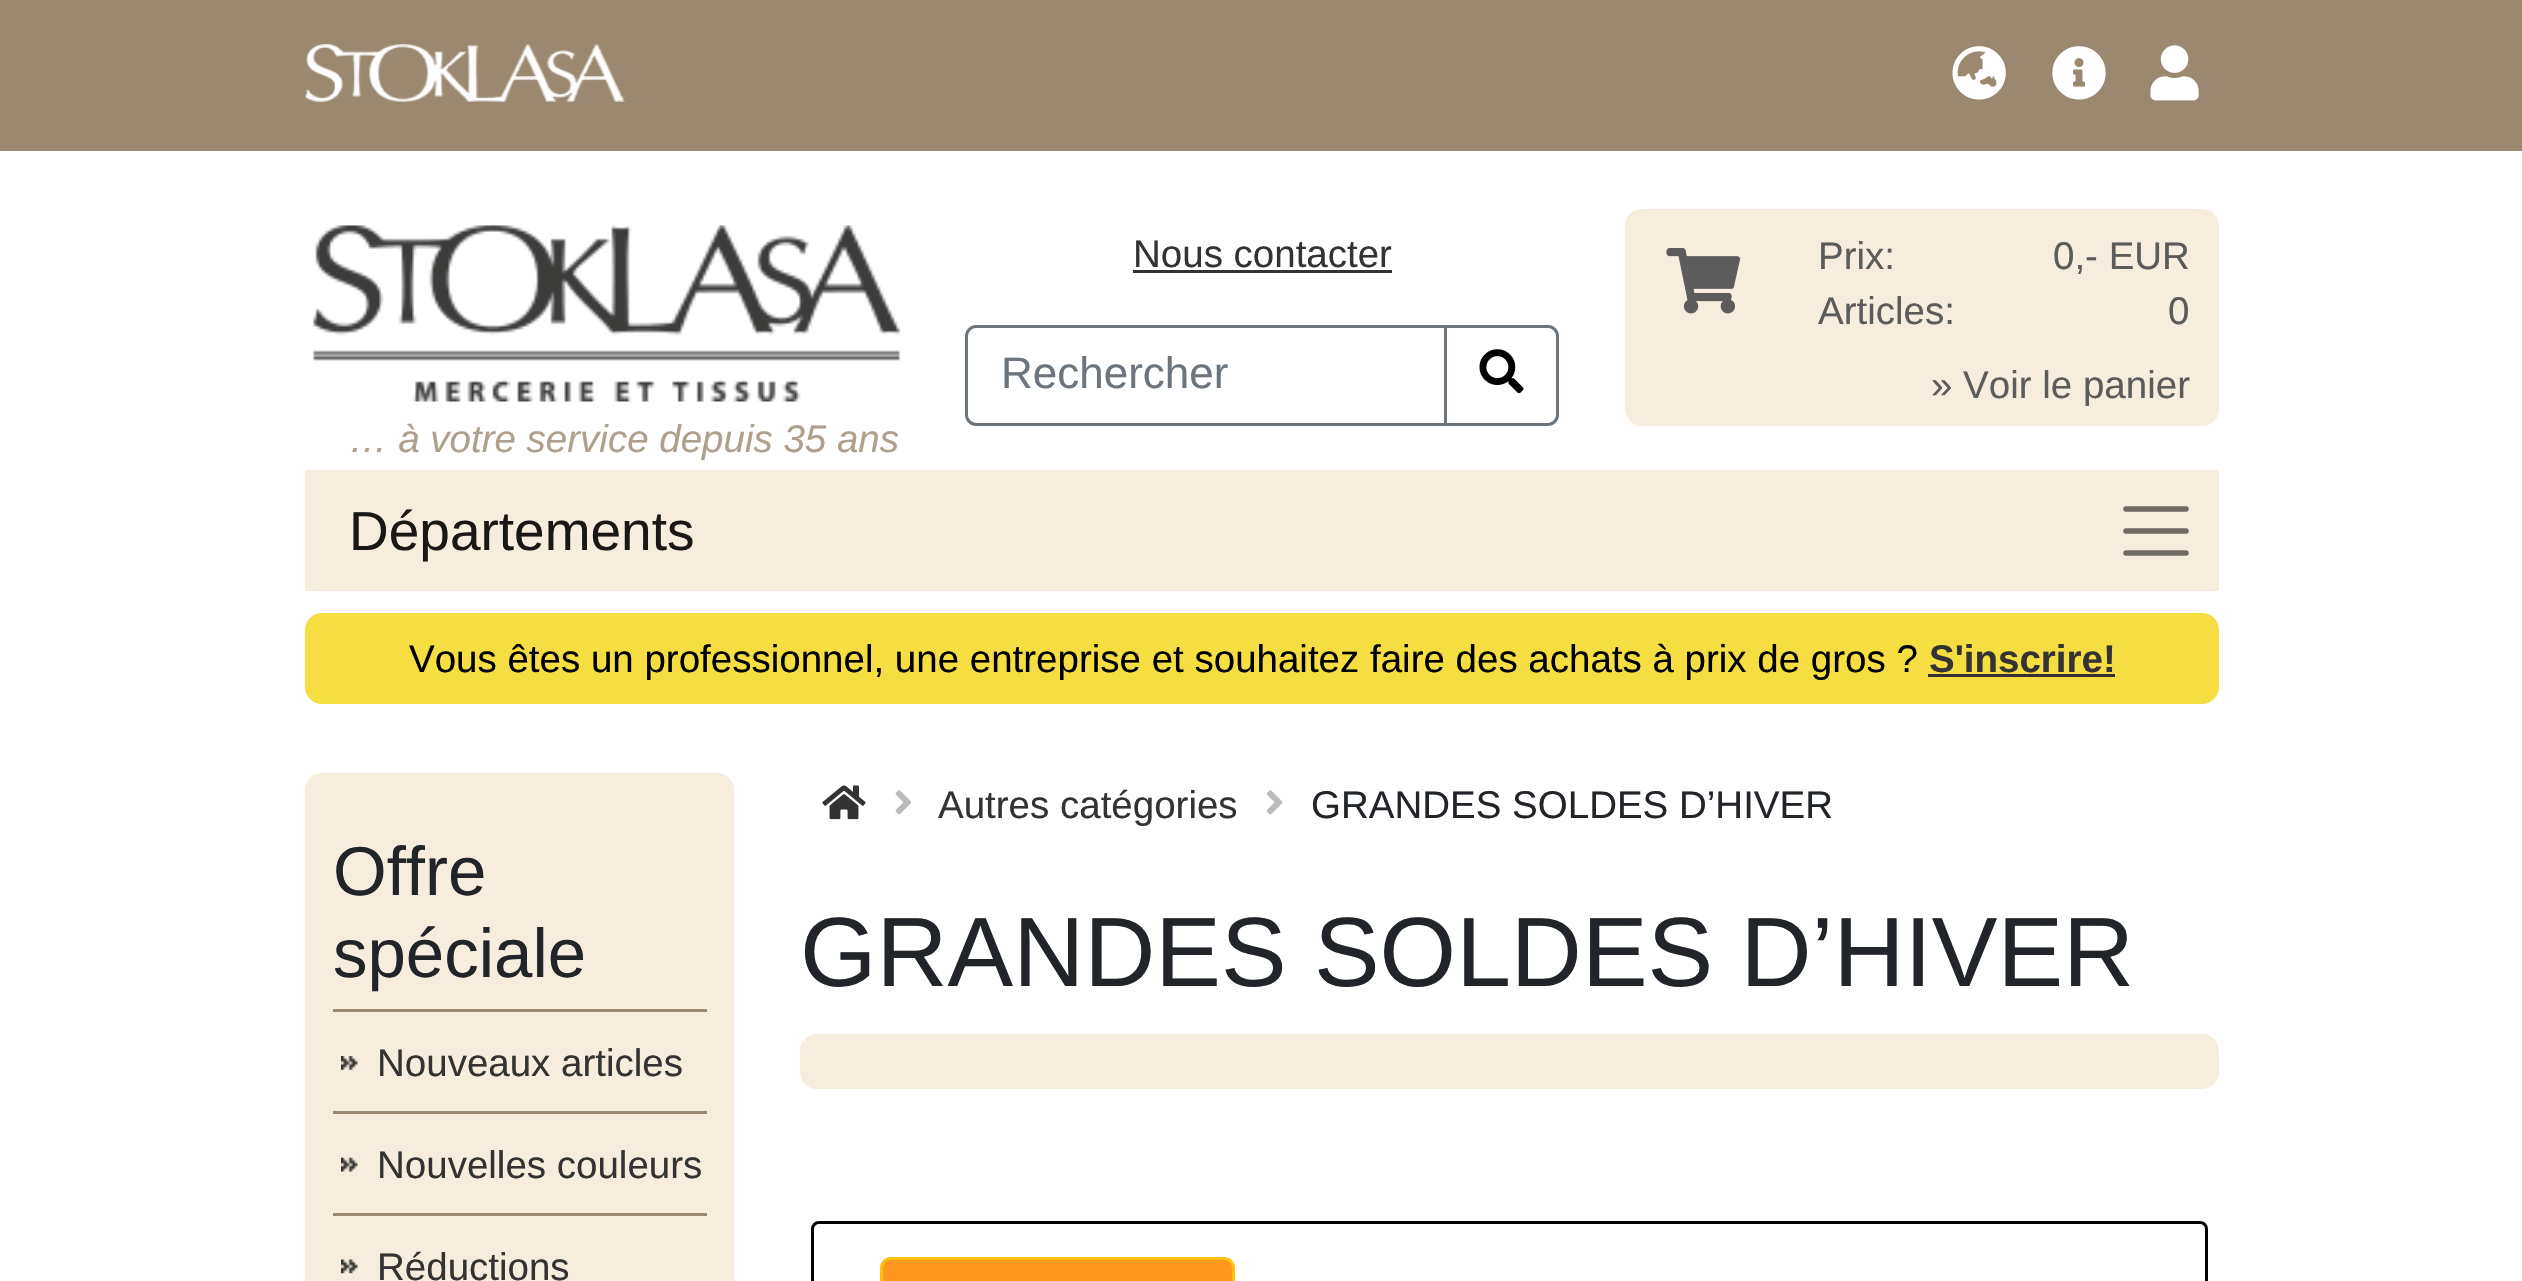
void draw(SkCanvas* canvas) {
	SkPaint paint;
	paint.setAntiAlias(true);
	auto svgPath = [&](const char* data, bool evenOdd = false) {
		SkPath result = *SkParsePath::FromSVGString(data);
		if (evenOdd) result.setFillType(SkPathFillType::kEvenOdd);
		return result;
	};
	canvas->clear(0xffffffff);
	paint.setColor(0xff9a8870);
	canvas->drawRect(SkRect::MakeXYWH(0, 0, 2522, 151), paint);
	canvas->drawImageRect(SkImages::DeferredFromEncodedData(SkData::MakeFromFileName("img1.png")), SkRect::MakeXYWH(305, 44, 320, 58), SkSamplingOptions());
	canvas->drawImageRect(SkImages::DeferredFromEncodedData(SkData::MakeFromFileName("img2.png")), SkRect::MakeXYWH(1952, 46, 54, 54), SkSamplingOptions());
	canvas->drawImageRect(SkImages::DeferredFromEncodedData(SkData::MakeFromFileName("img3.png")), SkRect::MakeXYWH(2052, 46, 54, 54), SkSamplingOptions());
	canvas->drawImageRect(SkImages::DeferredFromEncodedData(SkData::MakeFromFileName("img4.png")), SkRect::MakeXYWH(2150, 45, 49, 56), SkSamplingOptions());
	SkFont f1(fontMgr->matchFamilyStyle("Liberation Sans", SkFontStyle::Normal()), 38.5);
	f1.setSubpixel(true);
	paint.setColor(0xff333333);
	canvas->drawString("Nous contacter", 1133, 267, f1, paint);
	canvas->drawRect(SkRect::MakeXYWH(1133, 270, 259, 3), paint);
	paint.setStroke(true);
	paint.setStrokeWidth(3);
	paint.setColor(0xff6c757d);
	canvas->drawPath(svgPath("M976 326.5H1445.5V424.5H976C971 424.5 966.5 420 966.5 415V336C966.5 331 971 326.5 976 326.5Z"), paint);
	SkFont f2(fontMgr->matchFamilyStyle("Liberation Sans", SkFontStyle::Normal()), 44);
	f2.setSubpixel(true);
	paint.setStroke(false);
	canvas->drawString("Rechercher", 1001, 388, f2, paint);
	paint.setColor(0xffffffff);
	canvas->drawPath(svgPath("M1445.5 326.5H1548C1553 326.5 1557.5 331 1557.5 336V415C1557.5 420 1553 424.5 1548 424.5H1445.5Z"), paint);
	paint.setStroke(true);
	paint.setColor(0xff6c757d);
	canvas->drawPath(svgPath("M1445.5 326.5H1548C1553 326.5 1557.5 331 1557.5 336V415C1557.5 420 1553 424.5 1548 424.5H1445.5Z"), paint);
	canvas->drawImageRect(SkImages::DeferredFromEncodedData(SkData::MakeFromFileName("img5.png")), SkRect::MakeXYWH(1479, 349, 45, 45), SkSamplingOptions());
	paint.setStroke(false);
	paint.setColor(0xfff7edde);
	canvas->drawRoundRect(SkRect::MakeXYWH(1625, 209, 594, 217), 17, 17, paint);
	canvas->drawImageRect(SkImages::DeferredFromEncodedData(SkData::MakeFromFileName("img6.png")), SkRect::MakeXYWH(1666, 248, 75, 66), SkSamplingOptions());
	paint.setColor(0xff5c5c5c);
	canvas->drawString("Prix:", 1818, 269, f1, paint);
	canvas->drawString("Articles:", 1818, 324, f1, paint);
	canvas->drawString("0,- EUR", 2053, 269, f1, paint);
	canvas->drawString("0", 2168, 324, f1, paint);
	canvas->drawString("» Voir le panier", 1931, 398, f1, paint);
	canvas->drawImageRect(SkImages::DeferredFromEncodedData(SkData::MakeFromFileName("img7.png")), SkRect::MakeXYWH(312, 225, 589, 177), SkSamplingOptions());
	SkFont f3(fontMgr->matchFamilyStyle("Liberation Sans", SkFontStyle::Italic()), 38.5);
	f3.setSubpixel(true);
	paint.setColor(0xffaea08d);
	canvas->drawString("… à votre service depuis 35 ans", 349, 452, f3, paint);
	paint.setColor(0xfff7edde);
	canvas->drawRect(SkRect::MakeXYWH(305, 470, 1914, 121), paint);
	SkFont f4(fontMgr->matchFamilyStyle("Liberation Sans", SkFontStyle::Normal()), 55);
	f4.setSubpixel(true);
	paint.setColor(0xff191816);
	canvas->drawString("Départements", 349, 550, f4, paint);
	paint.setStroke(true);
	paint.setStrokeWidth(5.5);
	paint.setStrokeCap(SkPaint::kRound_Cap);
	paint.setColor(0xff6f6b64);
	canvas->drawPath(svgPath("M2126 509H2186M2126 531H2186M2126 553H2186"), paint);
	paint.setStroke(false);
	paint.setColor(0xfff5dd42);
	canvas->drawRoundRect(SkRect::MakeXYWH(305, 613, 1914, 91), 17, 17, paint);
	paint.setColor(0xff000000);
	canvas->drawString("Vous êtes un professionnel, une entreprise et souhaitez faire des achats à prix de gros ?", 409, 672, f1, paint);
	SkFont f5(fontMgr->matchFamilyStyle("Liberation Sans", SkFontStyle::Bold()), 38.5);
	f5.setSubpixel(true);
	paint.setColor(0xff333333);
	canvas->drawString("S'inscrire!", 1929, 672, f5, paint);
	canvas->drawRect(SkRect::MakeXYWH(1928, 674, 187, 3), paint);
	paint.setColor(0xfff7edde);
	canvas->drawRoundRect(SkRect::MakeXYWH(305, 773, 429, 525), 17, 17, paint);
	SkFont f6(fontMgr->matchFamilyStyle("Liberation Sans", SkFontStyle::Normal()), 69);
	f6.setSubpixel(true);
	paint.setColor(0xff212529);
	canvas->drawString("Offre", 333, 895, f6, paint);
	canvas->drawString("spéciale", 333, 977, f6, paint);
	canvas->drawImageRect(SkImages::DeferredFromEncodedData(SkData::MakeFromFileName("img8.png")), SkRect::MakeXYWH(341, 1056, 17, 14), SkSamplingOptions());
	paint.setColor(0xff9a8870);
	canvas->drawRect(SkRect::MakeXYWH(333, 1009, 374, 3), paint);
	paint.setColor(0xff333333);
	canvas->drawString("Nouveaux articles", 377, 1076, f1, paint);
	canvas->drawImageRect(SkImages::DeferredFromEncodedData(SkData::MakeFromFileName("img9.png")), SkRect::MakeXYWH(341, 1157, 17, 15), SkSamplingOptions());
	paint.setColor(0xff9a8870);
	canvas->drawRect(SkRect::MakeXYWH(333, 1111, 374, 3), paint);
	paint.setColor(0xff333333);
	canvas->drawString("Nouvelles couleurs", 377, 1178, f1, paint);
	canvas->drawImageRect(SkImages::DeferredFromEncodedData(SkData::MakeFromFileName("img10.png")), SkRect::MakeXYWH(341, 1259, 17, 15), SkSamplingOptions());
	paint.setColor(0xff9a8870);
	canvas->drawRect(SkRect::MakeXYWH(333, 1213, 374, 3), paint);
	paint.setColor(0xff333333);
	canvas->drawString("Réductions", 377, 1280, f1, paint);
	canvas->drawImageRect(SkImages::DeferredFromEncodedData(SkData::MakeFromFileName("img11.png")), SkRect::MakeXYWH(822, 785, 44, 35), SkSamplingOptions());
	canvas->drawImageRect(SkImages::DeferredFromEncodedData(SkData::MakeFromFileName("img12.png")), SkRect::MakeXYWH(895, 790, 17, 25), SkSamplingOptions());
	canvas->drawString("Autres catégories", 938, 818, f1, paint);
	canvas->drawImageRect(SkImages::DeferredFromEncodedData(SkData::MakeFromFileName("img13.png")), SkRect::MakeXYWH(1267, 790, 16, 25), SkSamplingOptions());
	paint.setColor(0xff212529);
	canvas->drawString("GRANDES SOLDES D’HIVER", 1311, 818, f1, paint);
	SkFont f7(fontMgr->matchFamilyStyle("Liberation Sans", SkFontStyle::Normal()), 98.4);
	f7.setSubpixel(true);
	canvas->drawString("GRANDES SOLDES D’HIVER", 800, 986, f7, paint);
	paint.setColor(0xfff7edde);
	canvas->drawRoundRect(SkRect::MakeXYWH(800, 1034, 1419, 55), 17, 17, paint);
	paint.setStroke(true);
	paint.setStrokeWidth(3);
	paint.setStrokeCap(SkPaint::kButt_Cap);
	paint.setColor(0xff000000);
	canvas->drawRoundRect(SkRect::MakeXYWH(812.5, 1222.5, 1394, 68), 6.5, 6.5, paint);
	paint.setStroke(false);
	paint.setColor(0xffff971f);
	canvas->drawRoundRect(SkRect::MakeXYWH(881.5, 1258.5, 352, 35), 9.5, 9.5, paint);
	paint.setStroke(true);
	paint.setColor(0xffffc107);
	canvas->drawRoundRect(SkRect::MakeXYWH(881.5, 1258.5, 352, 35), 9.5, 9.5, paint);
}
